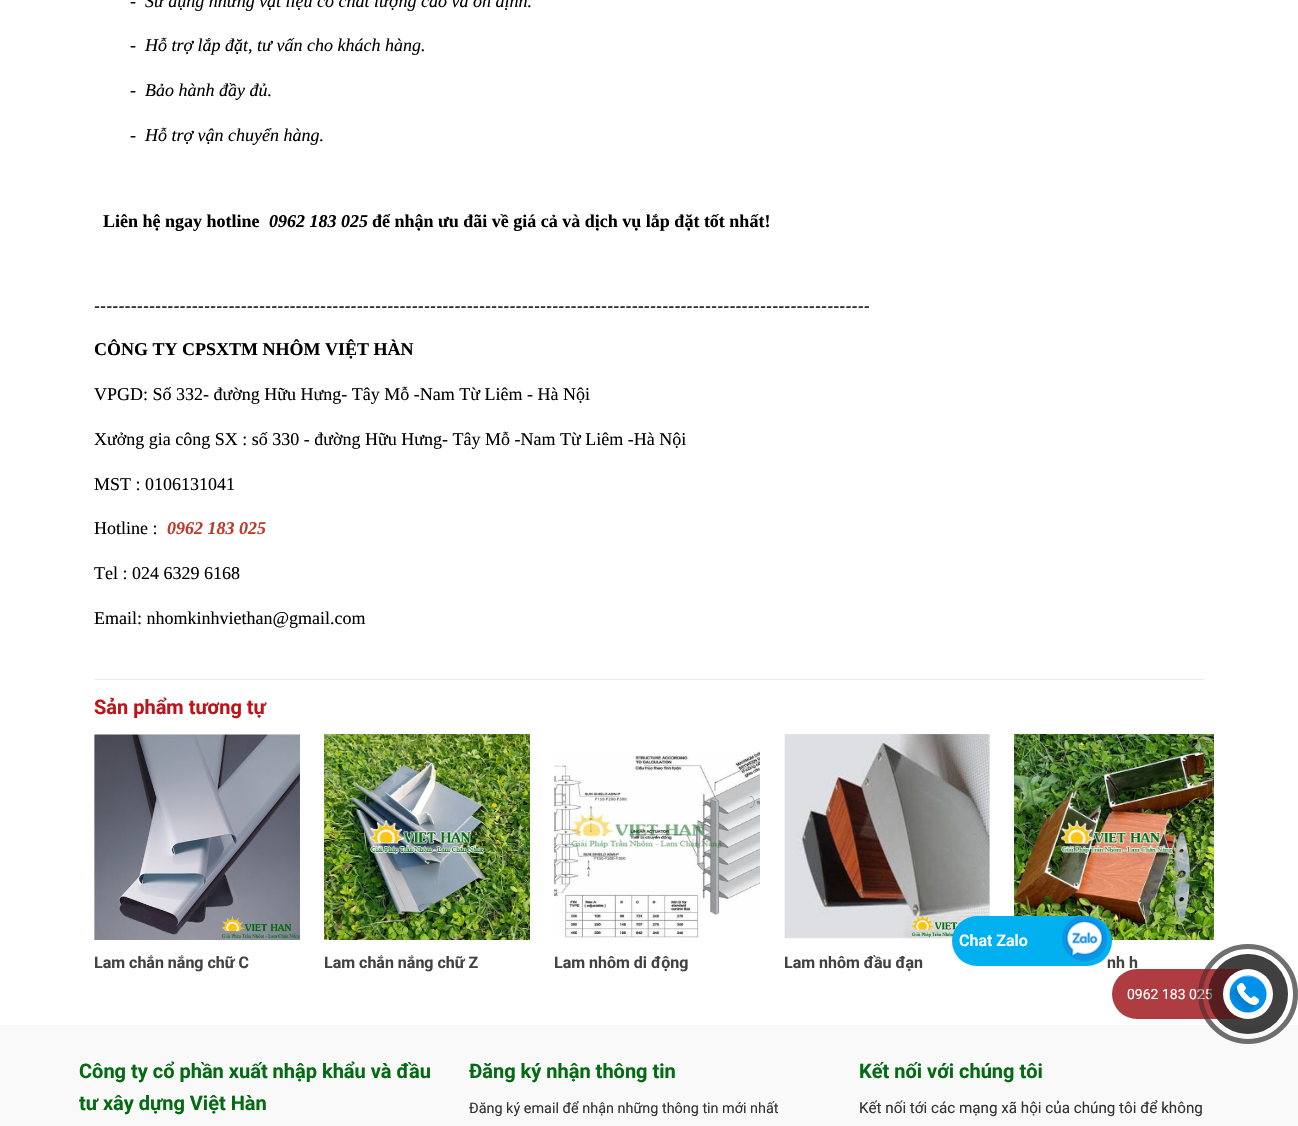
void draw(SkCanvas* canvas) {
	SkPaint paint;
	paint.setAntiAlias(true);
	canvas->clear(0xffffffff);
	SkFont f1(fontMgr->matchFamilyStyle("Liberation Serif", SkFontStyle::Italic()), 18);
	f1.setSubpixel(true);
	paint.setColor(0xff000000);
	canvas->drawString("-  Sử dụng những vật liệu có chất lượng cao và ổn định.", 130, 7, f1, paint);
	canvas->drawString("-  Hỗ trợ lắp đặt, tư vấn cho khách hàng.", 130, 51, f1, paint);
	canvas->drawString("-  Bảo hành đầy đủ.", 130, 96, f1, paint);
	canvas->drawString("-  Hỗ trợ vận chuyển hàng.", 130, 141, f1, paint);
	SkFont f2(fontMgr->matchFamilyStyle("Liberation Serif", SkFontStyle::Bold()), 18);
	f2.setSubpixel(true);
	canvas->drawString("Liên hệ ngay hotline", 103, 227, f2, paint);
	SkFont f3(fontMgr->matchFamilyStyle("Liberation Serif", SkFontStyle::BoldItalic()), 18);
	f3.setSubpixel(true);
	canvas->drawString("0962 183 025", 269, 227, f3, paint);
	canvas->drawString("để nhận ưu đãi về giá cả và dịch vụ lắp đặt tốt nhất!", 372, 227, f2, paint);
	SkFont f4(fontMgr->matchFamilyStyle("Roboto", SkFontStyle::BoldItalic()), 16);
	f4.setSubpixel(true);
	paint.setColor(0xff333333);
	canvas->drawString("-------------------------------------------------------------------------------------------------------------------------------", 94, 312, f4, paint);
	paint.setColor(0xff000000);
	canvas->drawString("CÔNG TY CPSXTM NHÔM VIỆT HÀN", 94, 355, f2, paint);
	SkFont f5(fontMgr->matchFamilyStyle("Liberation Serif", SkFontStyle::Normal()), 18);
	f5.setSubpixel(true);
	canvas->drawString("VPGD: Số 332- đường Hữu Hưng- Tây Mỗ -Nam Từ Liêm - Hà Nội", 94, 400, f5, paint);
	canvas->drawString("Xưởng gia công SX : số 330 - đường Hữu Hưng- Tây Mỗ -Nam Từ Liêm -Hà Nội", 94, 445, f5, paint);
	canvas->drawString("MST : 0106131041", 94, 490, f5, paint);
	canvas->drawString("Hotline :", 94, 534, f5, paint);
	paint.setColor(0xffc0392b);
	canvas->drawString("0962 183 025", 167, 534, f3, paint);
	paint.setColor(0xff000000);
	canvas->drawString("Tel : 024 6329 6168", 94, 579, f5, paint);
	canvas->drawString("Email: nhomkinhviethan@gmail.com", 94, 624, f5, paint);
	paint.setColor(0xffececec);
	canvas->drawRect(SkRect::MakeXYWH(94, 679, 1110, 1), paint);
	SkFont f6(fontMgr->matchFamilyStyle("Roboto", SkFontStyle::Bold()), 20);
	f6.setSubpixel(true);
	paint.setColor(0xffbd141a);
	canvas->drawString("Sản phẩm tương tự", 94, 714, f6, paint);
	canvas->drawImageRect(SkImages::DeferredFromEncodedData(SkData::MakeFromFileName("img1.png")), SkRect::MakeXYWH(94, 734, 206, 206), SkSamplingOptions());
	SkFont f7(fontMgr->matchFamilyStyle("Roboto", SkFontStyle::Bold()), 16);
	f7.setSubpixel(true);
	paint.setColor(0xff424242);
	canvas->drawString("Lam chắn nắng chữ C", 94, 968, f7, paint);
	canvas->drawImageRect(SkImages::DeferredFromEncodedData(SkData::MakeFromFileName("img2.png")), SkRect::MakeXYWH(324, 734, 206, 206), SkSamplingOptions());
	canvas->drawString("Lam chắn nắng chữ Z", 324, 968, f7, paint);
	canvas->drawImageRect(SkImages::DeferredFromEncodedData(SkData::MakeFromFileName("img3.png")), SkRect::MakeXYWH(554, 751, 206, 187), SkSamplingOptions());
	canvas->drawString("Lam nhôm di động", 554, 968, f7, paint);
	canvas->drawImageRect(SkImages::DeferredFromEncodedData(SkData::MakeFromFileName("img4.png")), SkRect::MakeXYWH(784, 734, 206, 205), SkSamplingOptions());
	canvas->drawString("Lam nhôm đầu đạn", 784, 968, f7, paint);
	canvas->drawImageRect(SkImages::DeferredFromEncodedData(SkData::MakeFromFileName("img5.png")), SkRect::MakeXYWH(1014, 734, 200, 206), SkSamplingOptions());
	canvas->drawString("nh h", 1107, 968, f7, paint);
	paint.setColor(0xff01b0ef);
	canvas->drawRoundRect(SkRect::MakeXYWH(952, 916, 160, 50), 25, 25, paint);
	SkFont f8(fontMgr->matchFamilyStyle("Roboto", SkFontStyle(600, SkFontStyle::kNormal_Width, SkFontStyle::kUpright_Slant)), 16);
	f8.setSubpixel(true);
	paint.setColor(0xffffffff);
	canvas->drawString("Chat Zalo", 959, 946, f8, paint);
	canvas->drawImageRect(SkImages::DeferredFromEncodedData(SkData::MakeFromFileName("img6.png")), SkRect::MakeXYWH(1062, 916, 45, 45), SkSamplingOptions());
	paint.setColor(0xfff9f9f9);
	canvas->drawRect(SkRect::MakeXYWH(0, 1025, 1298, 101), paint);
	paint.setStroke(true);
	paint.setStrokeWidth(5);
	paint.setColor(0x661e1e1e);
	canvas->drawCircle(1248, 994, 47.5, paint);
	paint.setStroke(false);
	paint.setColor(0x80000000);
	canvas->drawCircle(1248, 994, 40, paint);
	paint.setColor(0xffae3c40);
	canvas->drawRoundRect(SkRect::MakeXYWH(1112, 969, 161, 50), 25, 25, paint);
	SkFont f9(fontMgr->matchFamilyStyle("Roboto", SkFontStyle::Normal()), 14);
	f9.setSubpixel(true);
	paint.setColor(0xffffffff);
	canvas->drawString("0962 183 025", 1127, 999, f9, paint);
	paint.setStroke(true);
	paint.setColor(0x661e1e1e);
	canvas->drawCircle(1248, 994, 47.5, paint);
	paint.setStroke(false);
	paint.setColor(0x80000000);
	canvas->drawCircle(1248, 994, 40, paint);
	paint.setColor(0xffffffff);
	canvas->drawCircle(1248, 994, 25, paint);
	canvas->drawImageRect(SkImages::DeferredFromEncodedData(SkData::MakeFromFileName("img7.png")), SkRect::MakeXYWH(1229, 975, 38, 38), SkSamplingOptions());
	paint.setColor(0xff036b12);
	canvas->drawString("Công ty cổ phần xuất nhập khẩu và đầu", 79, 1078, f6, paint);
	canvas->drawString("tư xây dựng Việt Hàn", 79, 1110, f6, paint);
	canvas->drawString("Đăng ký nhận thông tin", 469, 1078, f6, paint);
	SkFont f10(fontMgr->matchFamilyStyle("Roboto", SkFontStyle::Normal()), 14.4);
	f10.setSubpixel(true);
	paint.setColor(0xff333333);
	canvas->drawString("Đăng ký email để nhận những thông tin mới nhất", 469, 1113, f10, paint);
	paint.setColor(0xff036b12);
	canvas->drawString("Kết nối với chúng tôi", 859, 1078, f6, paint);
	SkFont f11(fontMgr->matchFamilyStyle("Roboto", SkFontStyle::Normal()), 15.2);
	f11.setSubpixel(true);
	paint.setColor(0xff333333);
	canvas->drawString("Kết nối tới các mạng xã hội của chúng tôi để không", 859, 1113, f11, paint);
}
